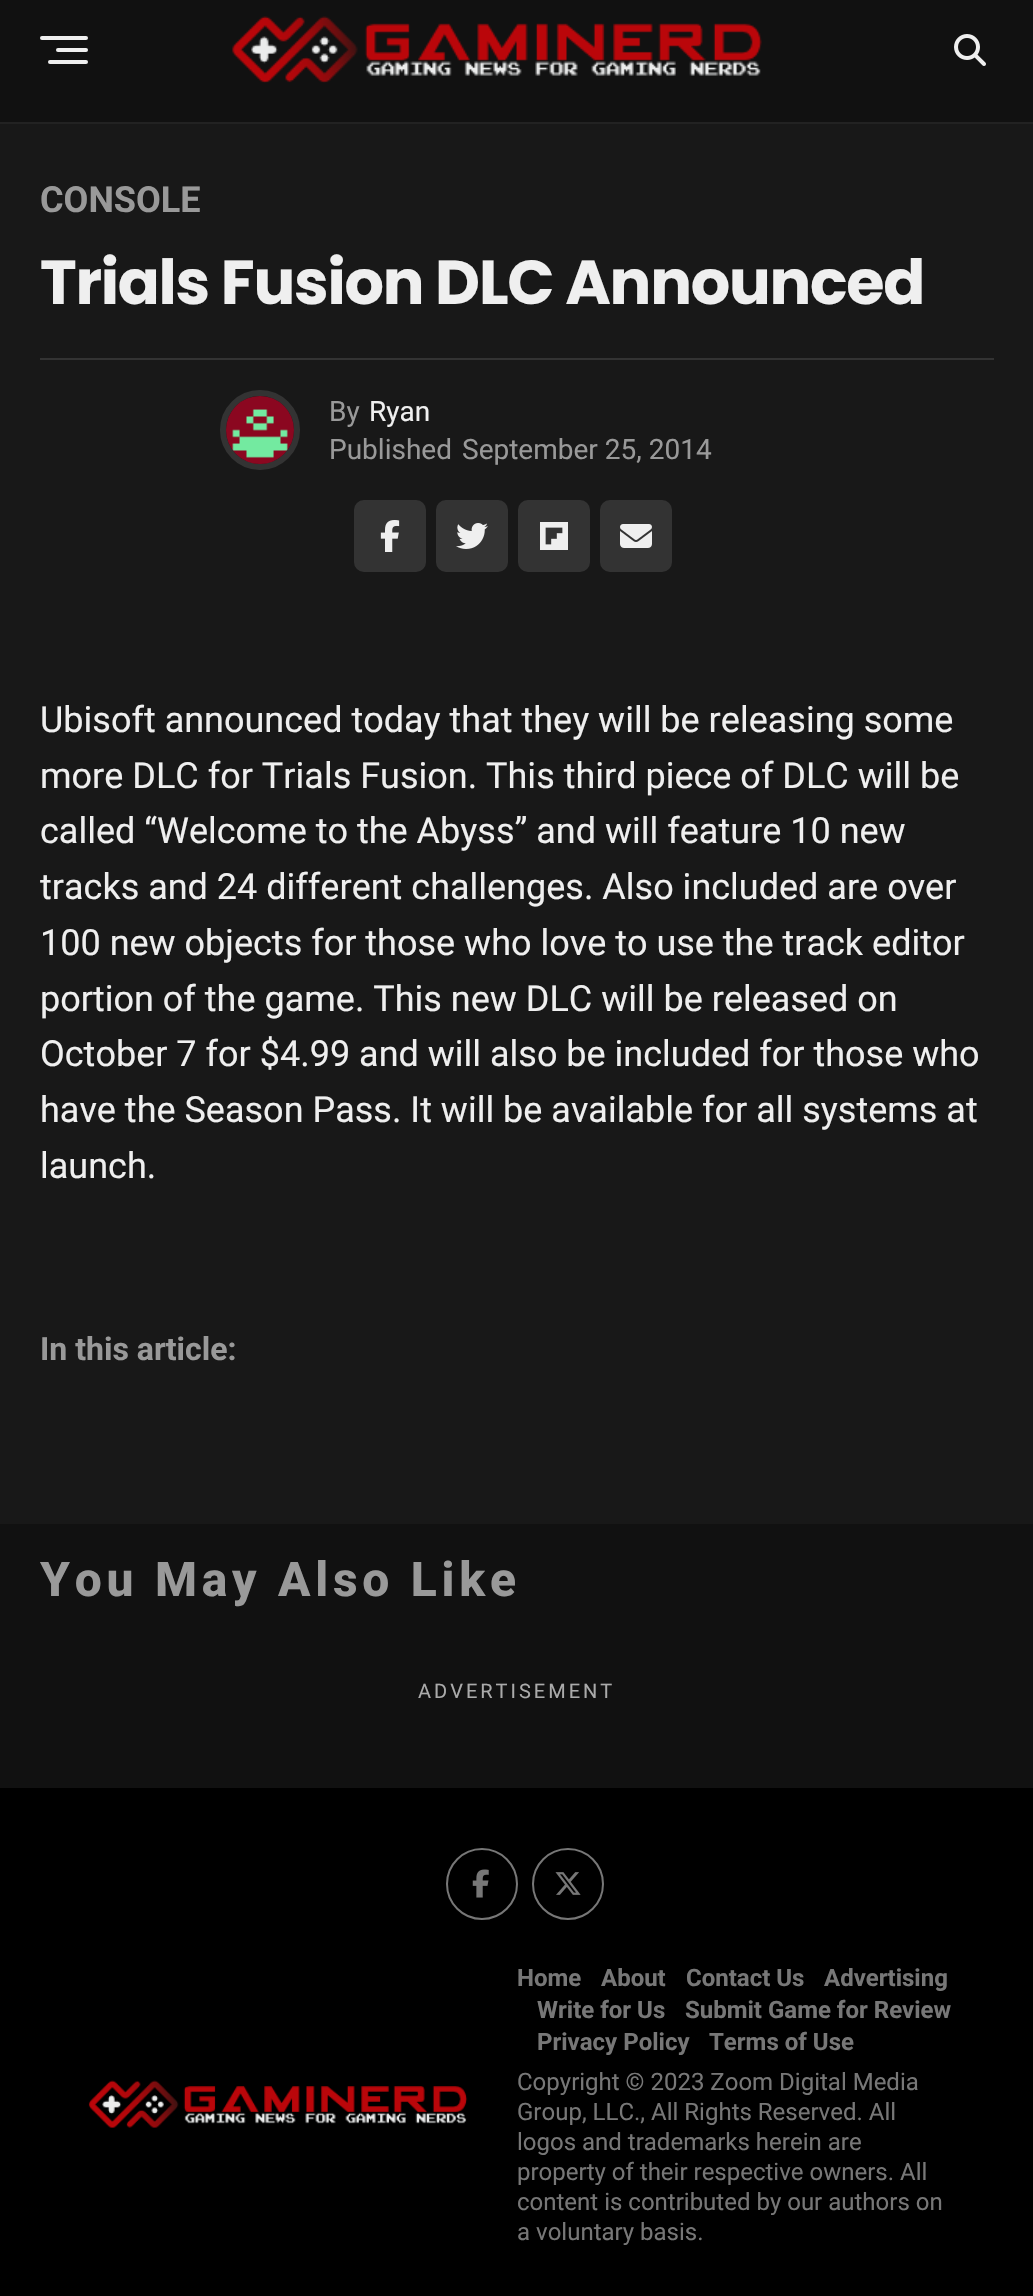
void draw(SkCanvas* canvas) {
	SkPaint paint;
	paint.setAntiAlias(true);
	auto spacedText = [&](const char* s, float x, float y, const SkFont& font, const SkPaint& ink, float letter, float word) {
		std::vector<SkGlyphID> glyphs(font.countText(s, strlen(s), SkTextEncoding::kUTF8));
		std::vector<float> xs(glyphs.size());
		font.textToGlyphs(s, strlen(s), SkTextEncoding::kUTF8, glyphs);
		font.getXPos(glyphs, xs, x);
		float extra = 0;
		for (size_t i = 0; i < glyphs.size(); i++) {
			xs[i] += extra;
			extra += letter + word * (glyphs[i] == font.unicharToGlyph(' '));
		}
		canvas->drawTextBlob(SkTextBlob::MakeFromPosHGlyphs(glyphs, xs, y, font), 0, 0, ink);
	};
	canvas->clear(0xff111111);
	paint.setColor(0xff222222);
	canvas->drawRect(SkRect::MakeXYWH(0, 122, 1033, 2), paint);
	paint.setColor(0xffefefef);
	canvas->drawRoundRect(SkRect::MakeXYWH(40, 36, 48, 4), 2, 2, paint);
	canvas->drawRoundRect(SkRect::MakeXYWH(56, 48, 32, 4), 2, 2, paint);
	canvas->drawRoundRect(SkRect::MakeXYWH(48, 60, 40, 4), 2, 2, paint);
	canvas->drawImageRect(SkImages::DeferredFromEncodedData(SkData::MakeFromFileName("img1.png")), SkRect::MakeXYWH(232, 16, 530, 67), SkSamplingOptions());
	canvas->drawImageRect(SkImages::DeferredFromEncodedData(SkData::MakeFromFileName("img2.png")), SkRect::MakeXYWH(954, 34, 32, 32), SkSamplingOptions());
	paint.setColor(0xff181818);
	canvas->drawRect(SkRect::MakeXYWH(0, 124, 1033, 1400), paint);
	SkFont f1(fontMgr->matchFamilyStyle("Roboto", SkFontStyle::Bold()), 36);
	f1.setSubpixel(true);
	paint.setColor(0xff999999);
	canvas->drawString("CONSOLE", 40, 212, f1, paint);
	SkFont f2(fontMgr->matchFamilyStyle("Poppins", SkFontStyle::Bold()), 62);
	f2.setSubpixel(true);
	paint.setColor(0xffefefef);
	spacedText("Trials Fusion DLC Announced", 40, 304, f2, paint, -1.25, 0);
	paint.setColor(0xff333333);
	canvas->drawRect(SkRect::MakeXYWH(40, 358, 954, 2), paint);
	paint.setStroke(true);
	paint.setStrokeWidth(6);
	canvas->drawCircle(260, 430, 37, paint);
	canvas->drawImageRect(SkImages::DeferredFromEncodedData(SkData::MakeFromFileName("img3.png")), SkRect::MakeXYWH(226, 396, 68, 68), SkSamplingOptions());
	SkFont f3(fontMgr->matchFamilyStyle("Roboto", SkFontStyle::Normal()), 28);
	f3.setSubpixel(true);
	paint.setStroke(false);
	paint.setColor(0xff999999);
	canvas->drawString("By", 329, 421, f3, paint);
	paint.setColor(0xffefefef);
	canvas->drawString("Ryan", 369, 421, f3, paint);
	paint.setColor(0xff999999);
	canvas->drawString("Published", 329, 459, f3, paint);
	canvas->drawString("September 25, 2014", 462, 459, f3, paint);
	paint.setColor(0xff333333);
	canvas->drawRoundRect(SkRect::MakeXYWH(355, 501, 70, 70), 9, 9, paint);
	paint.setStroke(true);
	paint.setStrokeWidth(2);
	canvas->drawRoundRect(SkRect::MakeXYWH(355, 501, 70, 70), 9, 9, paint);
	canvas->drawImageRect(SkImages::DeferredFromEncodedData(SkData::MakeFromFileName("img4.png")), SkRect::MakeXYWH(380, 520, 20, 32), SkSamplingOptions());
	paint.setStroke(false);
	canvas->drawRoundRect(SkRect::MakeXYWH(437, 501, 70, 70), 9, 9, paint);
	paint.setStroke(true);
	canvas->drawRoundRect(SkRect::MakeXYWH(437, 501, 70, 70), 9, 9, paint);
	canvas->drawImageRect(SkImages::DeferredFromEncodedData(SkData::MakeFromFileName("img5.png")), SkRect::MakeXYWH(456, 523, 32, 26), SkSamplingOptions());
	paint.setStroke(false);
	canvas->drawRoundRect(SkRect::MakeXYWH(519, 501, 70, 70), 9, 9, paint);
	paint.setStroke(true);
	canvas->drawRoundRect(SkRect::MakeXYWH(519, 501, 70, 70), 9, 9, paint);
	canvas->drawImageRect(SkImages::DeferredFromEncodedData(SkData::MakeFromFileName("img6.png")), SkRect::MakeXYWH(540, 522, 28, 28), SkSamplingOptions());
	paint.setStroke(false);
	canvas->drawRoundRect(SkRect::MakeXYWH(601, 501, 70, 70), 9, 9, paint);
	paint.setStroke(true);
	canvas->drawRoundRect(SkRect::MakeXYWH(601, 501, 70, 70), 9, 9, paint);
	canvas->drawImageRect(SkImages::DeferredFromEncodedData(SkData::MakeFromFileName("img7.png")), SkRect::MakeXYWH(620, 524, 32, 24), SkSamplingOptions());
	SkFont f4(fontMgr->matchFamilyStyle("Roboto", SkFontStyle::Normal()), 36);
	f4.setSubpixel(true);
	paint.setStroke(false);
	paint.setColor(0xffefefef);
	canvas->drawString("Ubisoft announced today that they will be releasing some", 40, 732, f4, paint);
	canvas->drawString("more DLC for Trials Fusion. This third piece of DLC will be", 40, 788, f4, paint);
	canvas->drawString("called “Welcome to the Abyss” and will feature 10 new", 40, 843, f4, paint);
	canvas->drawString("tracks and 24 different challenges. Also included are over", 40, 899, f4, paint);
	canvas->drawString("100 new objects for those who love to use the track editor", 40, 955, f4, paint);
	canvas->drawString("portion of the game. This new DLC will be released on", 40, 1011, f4, paint);
	canvas->drawString("October 7 for $4.99 and will also be included for those who", 40, 1066, f4, paint);
	canvas->drawString("have the Season Pass. It will be available for all systems at", 40, 1122, f4, paint);
	canvas->drawString("launch.", 40, 1178, f4, paint);
	SkFont f5(fontMgr->matchFamilyStyle("Roboto", SkFontStyle::Bold()), 32);
	f5.setSubpixel(true);
	paint.setColor(0xff999999);
	canvas->drawString("In this article:", 40, 1360, f5, paint);
	SkFont f6(fontMgr->matchFamilyStyle("Roboto", SkFontStyle(800, SkFontStyle::kNormal_Width, SkFontStyle::kUpright_Slant)), 48);
	f6.setSubpixel(true);
	spacedText("You May Also Like", 40, 1596, f6, paint, 4.75, 0);
	SkFont f7(fontMgr->matchFamilyStyle("Roboto", SkFontStyle::Normal()), 20);
	f7.setSubpixel(true);
	paint.setColor(0xffaaaaaa);
	spacedText("ADVERTISEMENT", 418, 1698, f7, paint, 3, 0);
	paint.setColor(0xff000000);
	canvas->drawRect(SkRect::MakeXYWH(0, 1788, 1033, 508), paint);
	paint.setStroke(true);
	paint.setColor(0xff777777);
	canvas->drawCircle(482, 1884, 35, paint);
	canvas->drawImageRect(SkImages::DeferredFromEncodedData(SkData::MakeFromFileName("img8.png")), SkRect::MakeXYWH(472, 1869, 17, 29), SkSamplingOptions());
	canvas->drawCircle(568, 1884, 35, paint);
	canvas->drawImageRect(SkImages::DeferredFromEncodedData(SkData::MakeFromFileName("img9.png")), SkRect::MakeXYWH(555, 1872, 26, 23), SkSamplingOptions());
	canvas->drawImageRect(SkImages::DeferredFromEncodedData(SkData::MakeFromFileName("img10.png")), SkRect::MakeXYWH(88, 2080, 380, 48), SkSamplingOptions());
	SkFont f8(fontMgr->matchFamilyStyle("Roboto", SkFontStyle::Bold()), 24);
	f8.setSubpixel(true);
	paint.setStroke(false);
	canvas->drawString("Home", 517, 1986, f8, paint);
	canvas->drawString("About", 601, 1986, f8, paint);
	canvas->drawString("Contact Us", 686, 1986, f8, paint);
	canvas->drawString("Advertising", 824, 1986, f8, paint);
	canvas->drawString("Write for Us", 537, 2018, f8, paint);
	canvas->drawString("Submit Game for Review", 685, 2018, f8, paint);
	canvas->drawString("Privacy Policy", 537, 2050, f8, paint);
	canvas->drawString("Terms of Use", 709, 2050, f8, paint);
	SkFont f9(fontMgr->matchFamilyStyle("Roboto", SkFontStyle::Normal()), 24);
	f9.setSubpixel(true);
	canvas->drawString("Copyright © 2023 Zoom Digital Media", 517, 2090, f9, paint);
	canvas->drawString("Group, LLC., All Rights Reserved. All", 517, 2120, f9, paint);
	canvas->drawString("logos and trademarks herein are", 517, 2150, f9, paint);
	canvas->drawString("property of their respective owners. All", 517, 2180, f9, paint);
	canvas->drawString("content is contributed by our authors on", 517, 2210, f9, paint);
	canvas->drawString("a voluntary basis.", 517, 2240, f9, paint);
}
